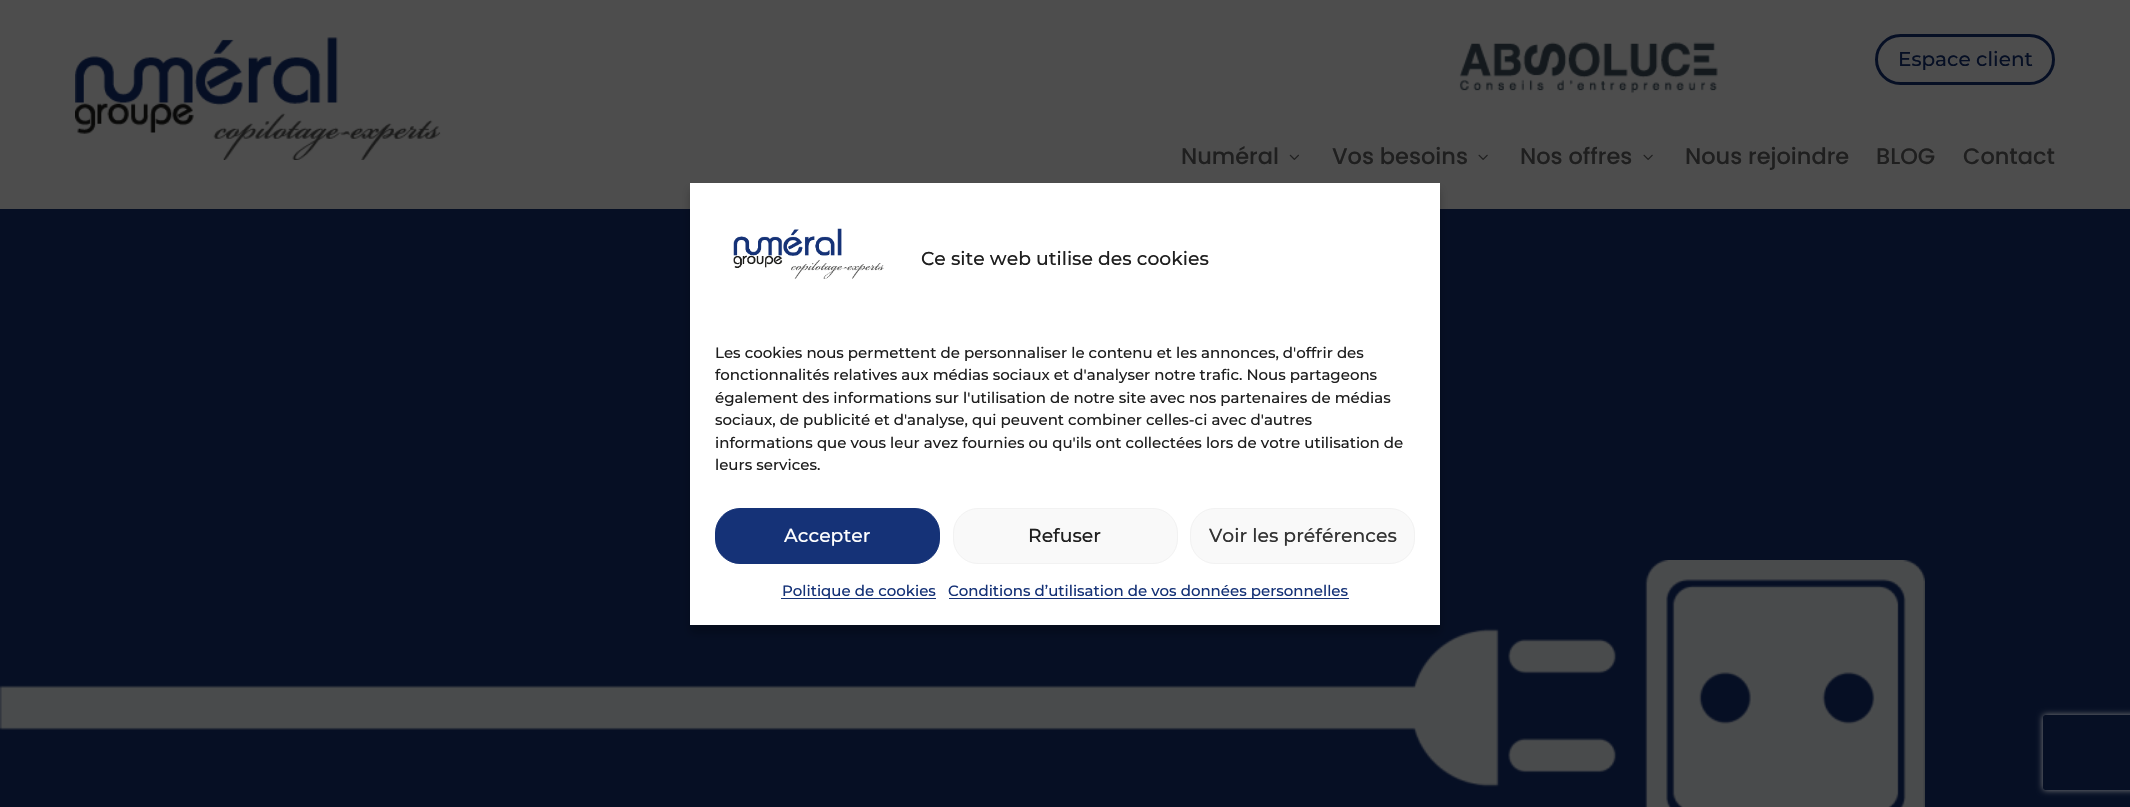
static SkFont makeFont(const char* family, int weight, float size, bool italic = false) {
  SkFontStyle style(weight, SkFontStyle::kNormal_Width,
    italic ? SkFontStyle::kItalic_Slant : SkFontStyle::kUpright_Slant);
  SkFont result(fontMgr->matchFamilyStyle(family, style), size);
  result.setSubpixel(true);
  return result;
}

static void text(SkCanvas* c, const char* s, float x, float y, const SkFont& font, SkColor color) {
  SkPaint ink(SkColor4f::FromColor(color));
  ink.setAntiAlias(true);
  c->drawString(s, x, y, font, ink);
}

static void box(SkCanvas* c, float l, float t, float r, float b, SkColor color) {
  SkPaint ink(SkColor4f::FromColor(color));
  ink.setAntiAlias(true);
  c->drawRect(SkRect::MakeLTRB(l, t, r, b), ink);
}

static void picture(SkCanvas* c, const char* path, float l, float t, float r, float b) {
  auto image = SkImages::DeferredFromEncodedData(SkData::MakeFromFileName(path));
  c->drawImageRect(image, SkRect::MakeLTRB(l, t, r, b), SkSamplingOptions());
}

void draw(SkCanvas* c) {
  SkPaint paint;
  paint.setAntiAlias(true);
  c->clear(0xff060f24);
  box(c, 0, 0, 2130, 209, 0xff4d4d4d);
  picture(c, "img_01.png", 1459, 42, 1718, 93);
  paint.setStyle(SkPaint::kStroke_Style);
  paint.setStrokeWidth(3);
  paint.setColor(0xff060f24);
  c->drawRoundRect(SkRect::MakeLTRB(1876.5f, 35.5f, 2053.5f, 83.5f), 24, 24, paint);
  SkFont face1 = makeFont("Montserrat", 500, 20);
  text(c, "Espace client", 1898, 66, face1, 0xff060f24);
  picture(c, "img_02.png", 75, 37, 441, 160);
  SkFont face2 = makeFont("Poppins", 500, 22.5f);
  text(c, "Numéral", 1181, 164, face2, 0xff1f1f1f);
  picture(c, "img_03.png", 1289, 154, 1299, 160);
  text(c, "Vos besoins", 1332, 164, face2, 0xff1f1f1f);
  picture(c, "img_04.png", 1478, 154, 1488, 160);
  text(c, "Nos offres", 1520, 164, face2, 0xff1f1f1f);
  picture(c, "img_04.png", 1643, 154, 1653, 160);
  text(c, "Nous rejoindre", 1685, 164, face2, 0xff1f1f1f);
  text(c, "BLOG", 1876, 164, face2, 0xff1f1f1f);
  text(c, "Contact", 1963, 164, face2, 0xff1f1f1f);
  picture(c, "img_05.png", 0, 560, 1925, 807);
  paint.setStyle(SkPaint::kFill_Style);
  paint.setColor(0x3b000000);
  paint.setMaskFilter(SkMaskFilter::MakeBlur(kNormal_SkBlurStyle, 4));
  c->drawRect(SkRect::MakeLTRB(690, 190, 1440, 633), paint);
  paint.setMaskFilter(nullptr);
  box(c, 690, 183, 1440, 625, 0xffffffff);
  picture(c, "img_06.png", 733, 228, 884, 279);
  SkFont face3 = makeFont("Montserrat", 500, 18.75f);
  text(c, "Ce site web utilise des cookies", 921, 265, face3, 0xff1f1f1f);
  SkFont face4 = makeFont("Montserrat", 500, 15);
  text(c, "Les cookies nous permettent de personnaliser le contenu et les annonces, d'offrir des", 715, 358, face4, 0xff1f1f1f);
  text(c, "fonctionnalités relatives aux médias sociaux et d'analyser notre trafic. Nous partageons", 715, 380, face4, 0xff1f1f1f);
  text(c, "également des informations sur l'utilisation de notre site avec nos partenaires de médias", 715, 403, face4, 0xff1f1f1f);
  text(c, "sociaux, de publicité et d'analyse, qui peuvent combiner celles-ci avec d'autres", 715, 425, face4, 0xff1f1f1f);
  text(c, "informations que vous leur avez fournies ou qu'ils ont collectées lors de votre utilisation de", 715, 448, face4, 0xff1f1f1f);
  text(c, "leurs services.", 715, 470, face4, 0xff1f1f1f);
  paint.setColor(0xff153277);
  c->drawRoundRect(SkRect::MakeLTRB(715.5f, 508.5f, 939.5f, 563.5f), 24.5f, 24.5f, paint);
  paint.setStyle(SkPaint::kStroke_Style);
  paint.setStrokeWidth(1);
  c->drawRoundRect(SkRect::MakeLTRB(715.5f, 508.5f, 939.5f, 563.5f), 24.5f, 24.5f, paint);
  text(c, "Accepter", 784, 542, face3, 0xffffffff);
  paint.setStyle(SkPaint::kFill_Style);
  paint.setColor(0xfff9f9f9);
  c->drawRoundRect(SkRect::MakeLTRB(953.5f, 508.5f, 1177.5f, 563.5f), 24.5f, 24.5f, paint);
  paint.setStyle(SkPaint::kStroke_Style);
  paint.setColor(0xfff2f2f2);
  c->drawRoundRect(SkRect::MakeLTRB(953.5f, 508.5f, 1177.5f, 563.5f), 24.5f, 24.5f, paint);
  text(c, "Refuser", 1028, 542, face3, 0xff1f1f1f);
  paint.setStyle(SkPaint::kFill_Style);
  paint.setColor(0xfff9f9f9);
  c->drawRoundRect(SkRect::MakeLTRB(1190.5f, 508.5f, 1414.5f, 563.5f), 24.5f, 24.5f, paint);
  paint.setStyle(SkPaint::kStroke_Style);
  paint.setColor(0xfff2f2f2);
  c->drawRoundRect(SkRect::MakeLTRB(1190.5f, 508.5f, 1414.5f, 563.5f), 24.5f, 24.5f, paint);
  text(c, "Voir les préférences", 1209, 542, face3, 0xff333333);
  box(c, 781, 598, 936, 599, 0xff153277);
  text(c, "Politique de cookies", 782, 596, face4, 0xff153277);
  box(c, 949, 598, 1349, 599, 0xff153277);
  text(c, "Conditions d’utilisation de vos données personnelles", 948, 596, face4, 0xff153277);
  c->save();
  c->clipPath(SkPathBuilder(SkPathFillType::kEvenOdd).moveTo(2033, 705).lineTo(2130, 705).lineTo(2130, 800).lineTo(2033, 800).close().moveTo(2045.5f, 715).lineTo(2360.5f, 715).cubicTo(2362, 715, 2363, 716, 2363, 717.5f).lineTo(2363, 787.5f).cubicTo(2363, 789, 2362, 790, 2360.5f, 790).lineTo(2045.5f, 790).cubicTo(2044, 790, 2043, 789, 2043, 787.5f).lineTo(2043, 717.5f).cubicTo(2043, 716, 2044, 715, 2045.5f, 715).close().detach(), true);
  paint.setStyle(SkPaint::kFill_Style);
  paint.setColor(0xff808080);
  paint.setMaskFilter(SkMaskFilter::MakeBlur(kNormal_SkBlurStyle, 3));
  c->drawRoundRect(SkRect::MakeLTRB(2043, 715, 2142, 790), 2.5f, 2.5f, paint);
  paint.setMaskFilter(nullptr);
  c->restore();
}
